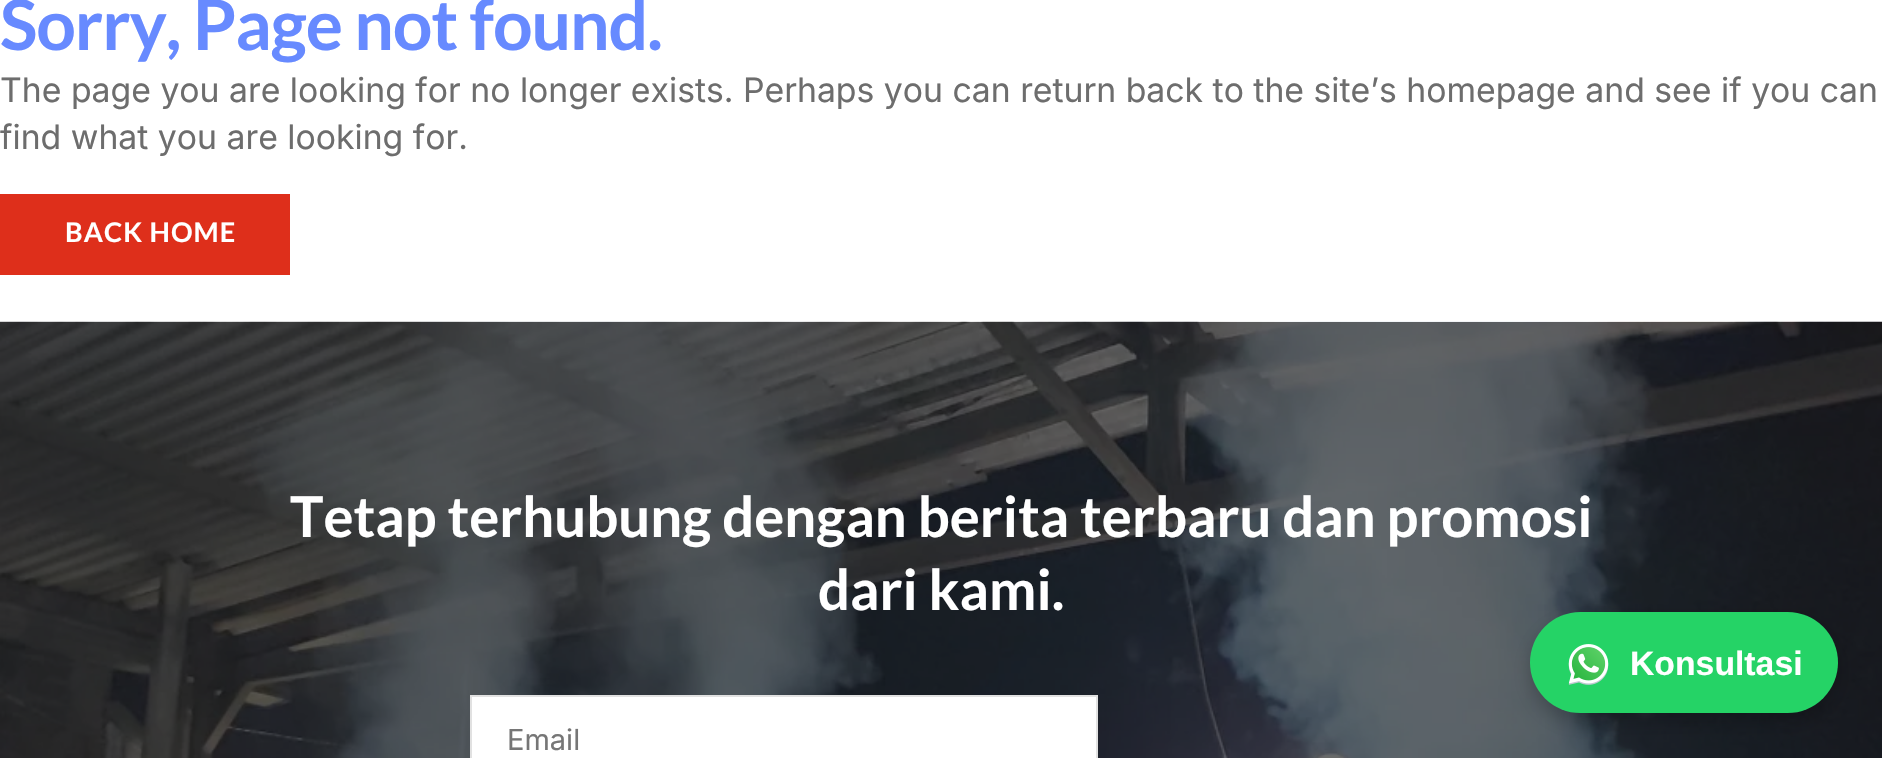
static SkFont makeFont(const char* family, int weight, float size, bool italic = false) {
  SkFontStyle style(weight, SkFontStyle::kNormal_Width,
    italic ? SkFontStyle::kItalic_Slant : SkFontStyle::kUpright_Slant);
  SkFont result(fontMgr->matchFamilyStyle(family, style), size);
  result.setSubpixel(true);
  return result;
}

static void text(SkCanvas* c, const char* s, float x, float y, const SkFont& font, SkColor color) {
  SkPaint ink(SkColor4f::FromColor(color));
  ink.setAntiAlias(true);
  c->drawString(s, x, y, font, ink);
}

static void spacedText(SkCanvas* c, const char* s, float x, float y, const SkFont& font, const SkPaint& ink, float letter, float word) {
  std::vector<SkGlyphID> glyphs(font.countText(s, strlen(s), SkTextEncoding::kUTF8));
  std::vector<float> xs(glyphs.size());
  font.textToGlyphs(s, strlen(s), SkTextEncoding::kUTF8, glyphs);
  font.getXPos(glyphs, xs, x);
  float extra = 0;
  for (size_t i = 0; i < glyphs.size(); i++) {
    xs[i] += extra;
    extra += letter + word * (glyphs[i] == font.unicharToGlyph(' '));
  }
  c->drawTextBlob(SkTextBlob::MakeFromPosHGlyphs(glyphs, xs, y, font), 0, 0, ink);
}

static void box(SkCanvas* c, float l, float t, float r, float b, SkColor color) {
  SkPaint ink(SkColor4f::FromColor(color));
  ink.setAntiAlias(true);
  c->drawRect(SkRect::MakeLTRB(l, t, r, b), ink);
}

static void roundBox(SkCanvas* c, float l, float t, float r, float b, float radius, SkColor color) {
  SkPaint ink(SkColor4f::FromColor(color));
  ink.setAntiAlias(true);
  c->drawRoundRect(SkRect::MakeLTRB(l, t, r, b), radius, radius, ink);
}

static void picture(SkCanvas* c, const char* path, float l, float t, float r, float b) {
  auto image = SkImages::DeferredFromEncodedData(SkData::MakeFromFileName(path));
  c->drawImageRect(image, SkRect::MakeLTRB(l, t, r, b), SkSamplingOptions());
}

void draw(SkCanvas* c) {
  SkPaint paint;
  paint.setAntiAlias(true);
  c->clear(0xffffffff);
  SkFont face1 = makeFont("Lato", 700, 69.75f);
  paint.setColor(0xff678aff);
  spacedText(c, "Sorry, Page not found.", 0, 50, face1, paint, -1.1f, 0);
  SkFont face2 = makeFont("Inter", 400, 33.75f);
  text(c, "The page you are looking for no longer exists. Perhaps you can return back to the site’s homepage and see if you can", 0, 102, face2, 0xff6d6d6d);
  text(c, "find what you are looking for.", 0, 149, face2, 0xff6d6d6d);
  box(c, 0, 194, 290, 275, 0xffde2f1b);
  SkFont face3 = makeFont("Lato", 700, 27);
  paint.setColor(0xffffffff);
  spacedText(c, "BACK HOME", 65, 242, face3, paint, 1.1f, 0);
  picture(c, "img_01.png", 0, 321, 1882, 758);
  SkFont face4 = makeFont("Lato", 700, 56.25f);
  text(c, "Tetap terhubung dengan berita terbaru dan promosi", 290, 537, face4, 0xffffffff);
  text(c, "dari kami.", 818, 610, face4, 0xffffffff);
  c->drawRect(SkRect::MakeLTRB(471, 696, 1097, 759), paint);
  paint.setStyle(SkPaint::kStroke_Style);
  paint.setStrokeWidth(2);
  paint.setColor(0xffe1e1e1);
  c->drawRect(SkRect::MakeLTRB(471, 696, 1097, 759), paint);
  SkFont face5 = makeFont("Inter", 400, 29);
  text(c, "Email", 507, 750, face5, 0xff767676);
  paint.setStyle(SkPaint::kFill_Style);
  paint.setColor(0x33000000);
  paint.setMaskFilter(SkMaskFilter::MakeBlur(kNormal_SkBlurStyle, 9));
  c->drawRoundRect(SkRect::MakeLTRB(1530, 621, 1838, 722), 50.5f, 50.5f, paint);
  paint.setMaskFilter(nullptr);
  roundBox(c, 1530, 612, 1838, 713, 50.5f, 0xff25d366);
  picture(c, "img_02.png", 1568, 644, 1609, 685);
  SkFont face6 = makeFont("Liberation Sans", 700, 33.75f);
  text(c, "Konsultasi", 1630, 675, face6, 0xffffffff);
}
